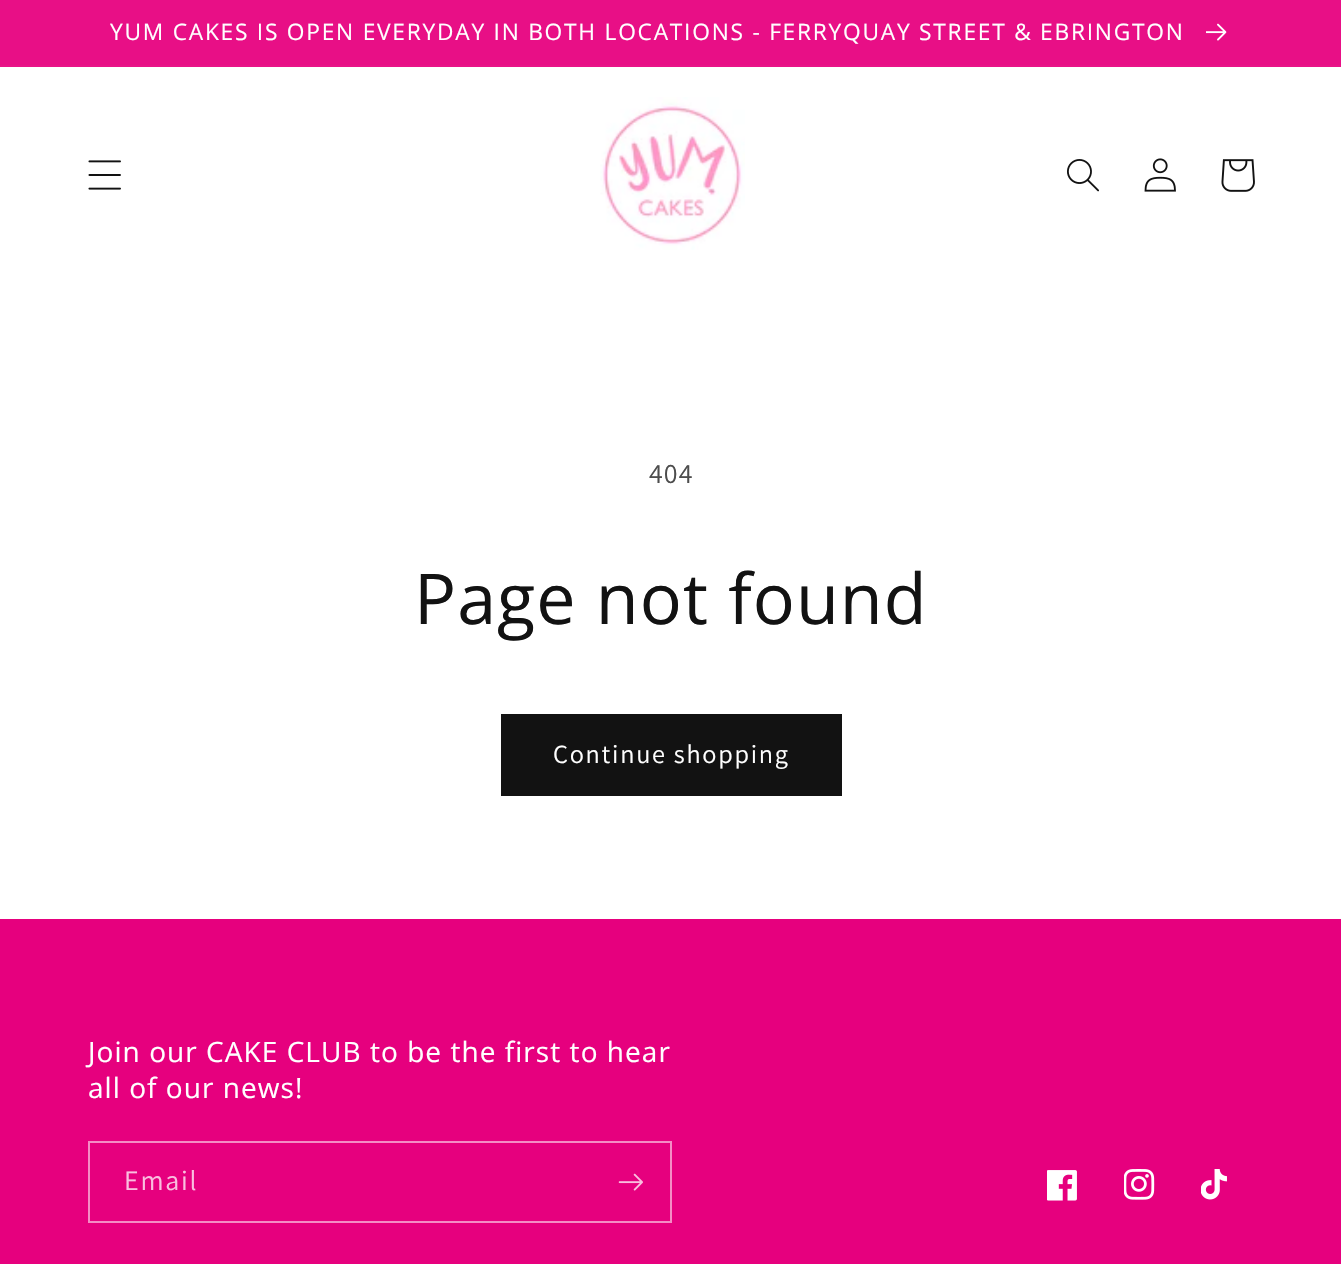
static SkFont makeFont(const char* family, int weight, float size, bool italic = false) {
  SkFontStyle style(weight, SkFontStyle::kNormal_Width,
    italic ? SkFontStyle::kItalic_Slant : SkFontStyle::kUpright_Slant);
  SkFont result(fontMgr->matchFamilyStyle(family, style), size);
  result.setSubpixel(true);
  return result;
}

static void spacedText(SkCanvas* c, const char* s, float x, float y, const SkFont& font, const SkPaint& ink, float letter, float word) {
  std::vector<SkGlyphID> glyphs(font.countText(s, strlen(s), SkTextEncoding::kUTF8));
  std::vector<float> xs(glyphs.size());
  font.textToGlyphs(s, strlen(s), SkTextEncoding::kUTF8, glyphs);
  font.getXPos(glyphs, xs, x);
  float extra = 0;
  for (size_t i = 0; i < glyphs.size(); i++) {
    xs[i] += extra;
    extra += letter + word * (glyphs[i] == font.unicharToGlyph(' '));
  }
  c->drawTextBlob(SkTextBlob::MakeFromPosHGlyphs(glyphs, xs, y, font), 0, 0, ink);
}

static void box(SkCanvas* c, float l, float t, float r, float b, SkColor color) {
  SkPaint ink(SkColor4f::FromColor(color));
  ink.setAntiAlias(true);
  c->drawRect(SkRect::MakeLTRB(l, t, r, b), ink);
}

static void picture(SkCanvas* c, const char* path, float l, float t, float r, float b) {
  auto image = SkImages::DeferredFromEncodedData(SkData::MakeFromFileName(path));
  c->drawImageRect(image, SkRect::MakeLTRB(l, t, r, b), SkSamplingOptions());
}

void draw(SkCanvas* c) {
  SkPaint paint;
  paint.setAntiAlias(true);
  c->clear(0xffffffff);
  box(c, 0, 65, 1341, 67, 0xffe81488);
  box(c, 0, 0, 1341, 65, 0xffe80f86);
  SkFont face1 = makeFont("Open Sans", 400, 22.75f);
  paint.setColor(0xffffffff);
  spacedText(c, "YUM CAKES IS OPEN EVERYDAY IN BOTH LOCATIONS - FERRYQUAY STREET & EBRINGTON", 110, 40, face1, paint, 1.75f, 0);
  picture(c, "img_01.png", 1206, 23, 1227, 41);
  picture(c, "img_02.png", 88, 160, 121, 190);
  picture(c, "img_03.png", 600, 97, 745, 250);
  picture(c, "img_04.png", 1067, 159, 1099, 192);
  picture(c, "img_05.png", 1144, 158, 1176, 192);
  picture(c, "img_06.png", 1221, 159, 1255, 192);
  SkFont face2 = makeFont("Assistant", 400, 28);
  paint.setColor(0xff4d4d4d);
  spacedText(c, "404", 649, 483, face2, paint, 1.05f, 0);
  SkFont face3 = makeFont("Open Sans", 400, 70);
  paint.setColor(0xff121212);
  spacedText(c, "Page not found", 414, 624, face3, paint, 1.05f, 0);
  box(c, 501, 714, 842, 796, 0xff121212);
  SkFont face4 = makeFont("Assistant", 400, 26.25f);
  paint.setColor(0xffffffff);
  spacedText(c, "Continue shopping", 553, 763, face4, paint, 1.75f, 0);
  box(c, 0, 919, 1341, 1264, 0xffe6007e);
  SkFont face5 = makeFont("Open Sans", 400, 28);
  spacedText(c, "Join our CAKE CLUB to be the first to hear", 88, 1062, face5, paint, 1.05f, 0);
  spacedText(c, "all of our news!", 88, 1098, face5, paint, 1.05f, 0);
  paint.setStyle(SkPaint::kStroke_Style);
  paint.setStrokeWidth(2);
  paint.setColor(0xfff48cc5);
  c->drawRect(SkRect::MakeLTRB(89, 1142, 671, 1222), paint);
  paint.setStyle(SkPaint::kFill_Style);
  paint.setColor(0xfff9bfdf);
  spacedText(c, "Email", 124, 1190, face2, paint, 1.75f, 0);
  picture(c, "img_07.png", 618, 1173, 643, 1191);
  picture(c, "img_08.png", 1047, 1170, 1077, 1201);
  picture(c, "img_09.png", 1124, 1169, 1155, 1200);
  picture(c, "img_10.png", 1201, 1169, 1227, 1200);
}
